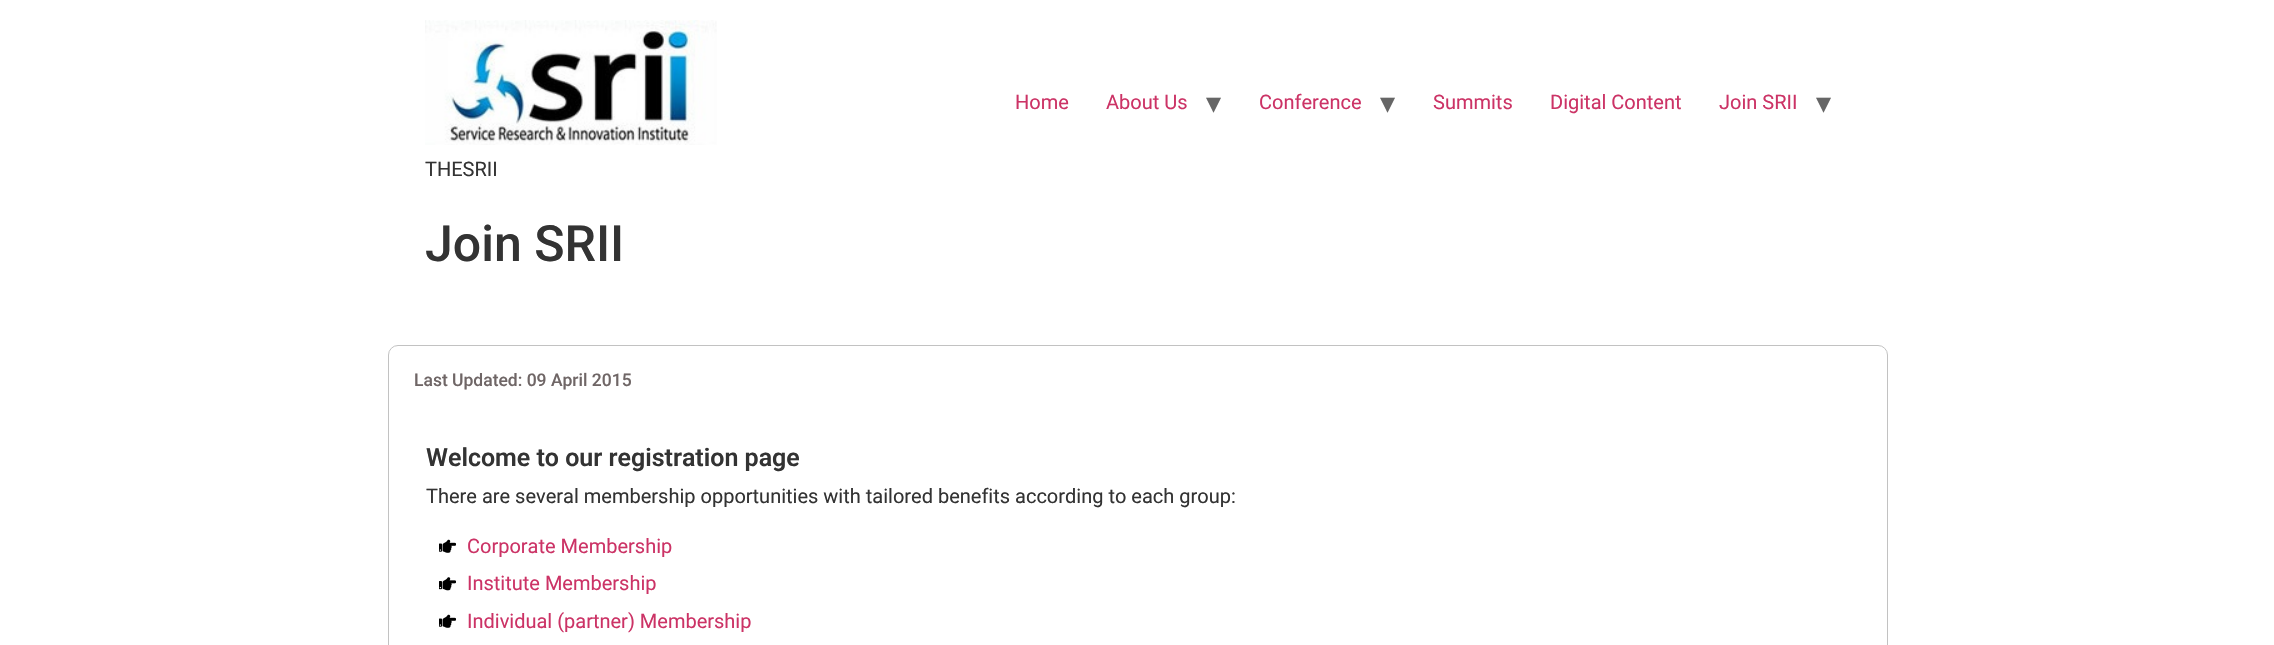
static SkFont makeFont(const char* family, int weight, float size, bool italic = false) {
  SkFontStyle style(weight, SkFontStyle::kNormal_Width,
    italic ? SkFontStyle::kItalic_Slant : SkFontStyle::kUpright_Slant);
  SkFont result(fontMgr->matchFamilyStyle(family, style), size);
  result.setSubpixel(true);
  return result;
}

static void text(SkCanvas* c, const char* s, float x, float y, const SkFont& font, SkColor color) {
  SkPaint ink(SkColor4f::FromColor(color));
  ink.setAntiAlias(true);
  c->drawString(s, x, y, font, ink);
}

static void picture(SkCanvas* c, const char* path, float l, float t, float r, float b) {
  auto image = SkImages::DeferredFromEncodedData(SkData::MakeFromFileName(path));
  c->drawImageRect(image, SkRect::MakeLTRB(l, t, r, b), SkSamplingOptions());
}

void draw(SkCanvas* c) {
  SkPaint paint;
  paint.setAntiAlias(true);
  c->clear(0xffffffff);
  SkFont face1 = makeFont("Roboto", 400, 20);
  text(c, "Home", 1015, 109, face1, 0xffcc3366);
  text(c, "About Us", 1106, 109, face1, 0xffcc3366);
  SkFont face2 = makeFont("DejaVu Sans", 400, 30);
  text(c, "▾", 1206, 113, face2, 0xff666666);
  text(c, "Conference", 1259, 109, face1, 0xffcc3366);
  text(c, "▾", 1380, 113, face2, 0xff666666);
  text(c, "Summits", 1433, 109, face1, 0xffcc3366);
  text(c, "Digital Content", 1550, 109, face1, 0xffcc3366);
  text(c, "Join SRII", 1719, 109, face1, 0xffcc3366);
  text(c, "▾", 1816, 113, face2, 0xff666666);
  picture(c, "img_01.png", 425, 20, 717, 145);
  text(c, "THESRII", 425, 176, face1, 0xff333333);
  SkFont face3 = makeFont("Roboto", 500, 50);
  text(c, "Join SRII", 425, 261, face3, 0xff333333);
  paint.setStyle(SkPaint::kStroke_Style);
  paint.setStrokeWidth(1);
  paint.setColor(0xffc2c2c2);
  c->drawRoundRect(SkRect::MakeLTRB(388.5f, 345.5f, 1887.5f, 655.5f), 9.5f, 9.5f, paint);
  SkFont face4 = makeFont("Roboto", 500, 17.5f);
  text(c, "Last Updated: 09 April 2015", 414, 386, face4, 0xff6f6666);
  SkFont face5 = makeFont("Roboto", 600, 25);
  text(c, "Welcome to our registration page", 426, 466, face5, 0xff333333);
  text(c, "There are several membership opportunities with tailored benefits according to each group:", 426, 503, face1, 0xff333333);
  picture(c, "img_02.png", 439, 539, 456, 553);
  text(c, "Corporate Membership", 467, 553, face1, 0xffcc3366);
  picture(c, "img_03.png", 439, 577, 456, 591);
  text(c, "Institute Membership", 467, 590, face1, 0xffcc3366);
  picture(c, "img_02.png", 439, 614, 456, 628);
  text(c, "Individual (partner) Membership", 467, 628, face1, 0xffcc3366);
}
